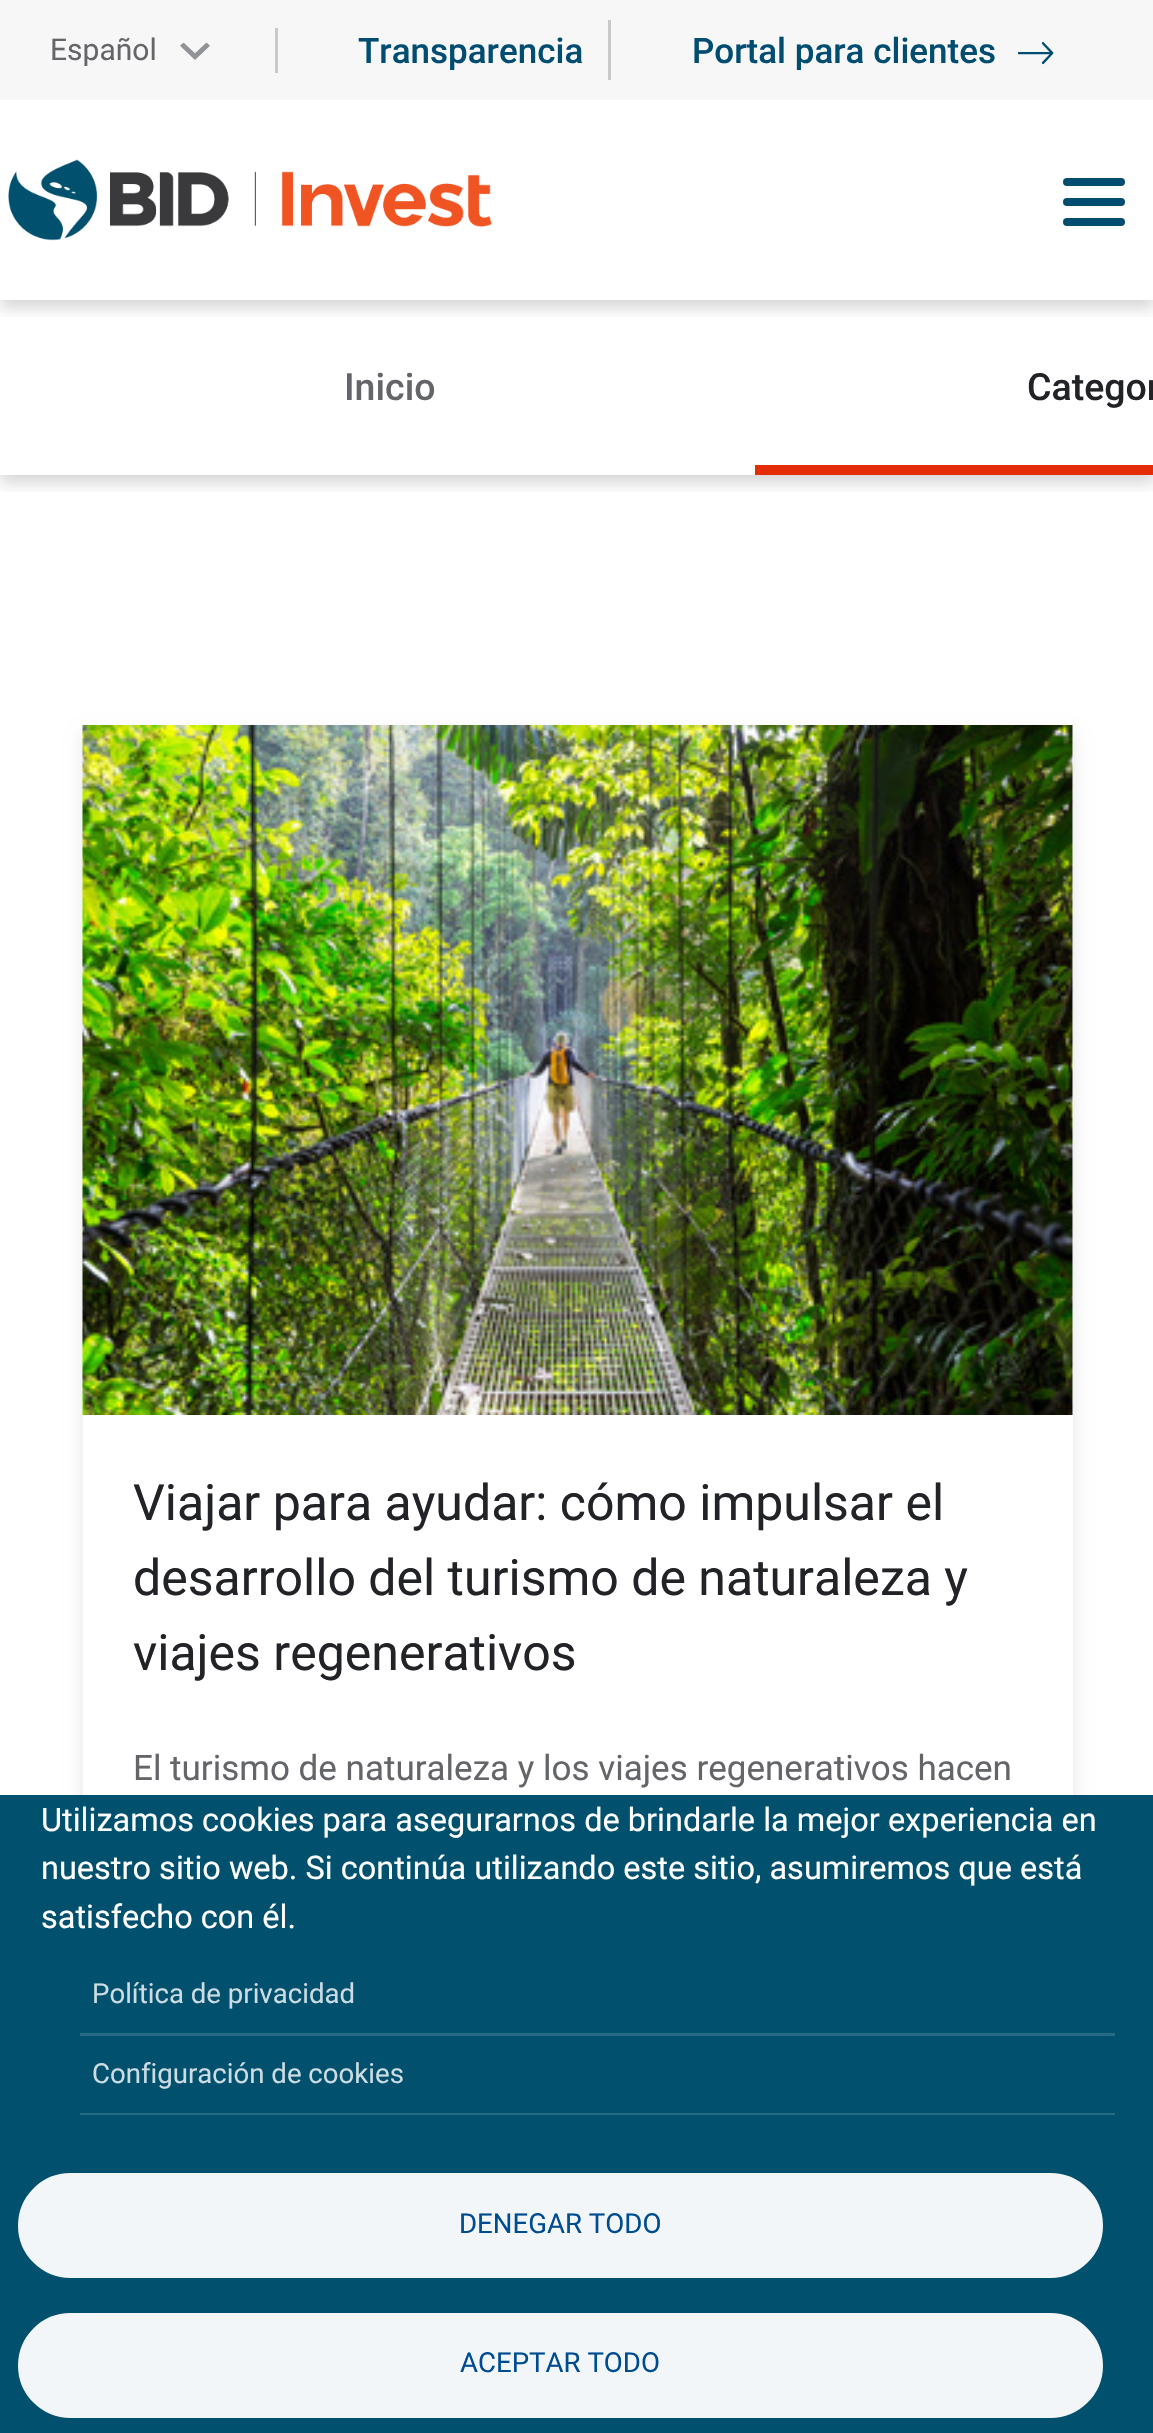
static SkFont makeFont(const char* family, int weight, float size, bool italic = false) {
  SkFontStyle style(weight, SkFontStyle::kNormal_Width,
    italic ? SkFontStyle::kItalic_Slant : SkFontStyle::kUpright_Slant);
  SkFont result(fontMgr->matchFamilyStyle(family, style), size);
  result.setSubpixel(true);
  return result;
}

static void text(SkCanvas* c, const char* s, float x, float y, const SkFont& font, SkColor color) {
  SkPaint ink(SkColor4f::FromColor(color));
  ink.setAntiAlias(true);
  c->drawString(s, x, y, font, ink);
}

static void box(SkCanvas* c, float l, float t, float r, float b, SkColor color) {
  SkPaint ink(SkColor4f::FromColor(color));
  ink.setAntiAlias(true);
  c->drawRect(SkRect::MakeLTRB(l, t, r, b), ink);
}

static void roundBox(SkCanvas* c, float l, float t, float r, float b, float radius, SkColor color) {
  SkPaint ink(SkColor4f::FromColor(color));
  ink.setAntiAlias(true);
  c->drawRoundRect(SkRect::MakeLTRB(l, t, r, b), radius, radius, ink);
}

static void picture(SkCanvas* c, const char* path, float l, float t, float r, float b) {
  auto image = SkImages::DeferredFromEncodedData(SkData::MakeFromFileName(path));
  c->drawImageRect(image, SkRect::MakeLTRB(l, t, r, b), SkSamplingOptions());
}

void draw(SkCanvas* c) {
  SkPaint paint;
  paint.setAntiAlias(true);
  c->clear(0xffffffff);
  c->save();
  c->clipRect(SkRect::MakeLTRB(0, 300, 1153, 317));
  paint.setColor(0x29000000);
  paint.setMaskFilter(SkMaskFilter::MakeBlur(kNormal_SkBlurStyle, 7.5f));
  c->drawRect(SkRect::MakeLTRB(0, 8, 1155, 308), paint);
  paint.setMaskFilter(nullptr);
  c->restore();
  box(c, 0, 0, 1153, 100, 0xfff7f7f7);
  box(c, 275, 28, 278, 73, 0xffc9c9c9);
  SkFont face1 = makeFont("Roboto", 400, 30);
  text(c, "Español", 50, 60, face1, 0xff636569);
  picture(c, "img_01.png", 180, 43, 210, 60);
  box(c, 608, 20, 611, 80, 0xffc9c9c9);
  SkFont face2 = makeFont("Roboto", 500, 35);
  text(c, "Transparencia", 358, 63, face2, 0xff004d71);
  text(c, "Portal para clientes", 692, 63, face2, 0xff004d71);
  picture(c, "img_02.png", 1017, 42, 1054, 65);
  picture(c, "img_03.png", 8, 159, 492, 241);
  roundBox(c, 1063, 178, 1125, 186, 4, 0xff004d71);
  roundBox(c, 1063, 198, 1125, 206, 4, 0xff004d71);
  roundBox(c, 1063, 218, 1125, 226, 4, 0xff004d71);
  c->save();
  c->clipRect(SkRect::MakeLTRB(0, 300, 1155, 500));
  c->clipRect(SkRect::MakeLTRB(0, 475, 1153, 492));
  paint.setMaskFilter(SkMaskFilter::MakeBlur(kNormal_SkBlurStyle, 7.5f));
  c->drawRect(SkRect::MakeLTRB(0, 308, 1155, 483), paint);
  paint.setMaskFilter(nullptr);
  c->restore();
  SkFont face3 = makeFont("Roboto", 500, 37.5f);
  text(c, "Inicio", 344, 400, face3, 0xff636569);
  box(c, 755, 465, 1153, 475, 0xffe42c07);
  text(c, "Categor", 1027, 400, face3, 0xff222327);
  paint.setColor(0x1a000000);
  paint.setMaskFilter(SkMaskFilter::MakeBlur(kNormal_SkBlurStyle, 7.5f));
  c->drawRect(SkRect::MakeLTRB(83, 733, 1073, 2128), paint);
  paint.setMaskFilter(nullptr);
  box(c, 83, 725, 1073, 1795, 0xffffffff);
  picture(c, "img_04.png", 82, 725, 1073, 1415);
  SkFont face4 = makeFont("Roboto", 400, 50);
  text(c, "Viajar para ayudar: cómo impulsar el", 133, 1520, face4, 0xff222327);
  text(c, "desarrollo del turismo de naturaleza y", 133, 1595, face4, 0xff222327);
  text(c, "viajes regenerativos", 133, 1670, face4, 0xff222327);
  SkFont face5 = makeFont("Roboto", 400, 35);
  text(c, "El turismo de naturaleza y los viajes regenerativos hacen", 133, 1780, face5, 0xff636569);
  box(c, 0, 1795, 1153, 2433, 0xff00506e);
  SkFont face6 = makeFont("Roboto", 400, 32.5f);
  text(c, "Utilizamos cookies para asegurarnos de brindarle la mejor experiencia en", 41, 1831, face6, 0xffffffff);
  text(c, "nuestro sitio web. Si continúa utilizando este sitio, asumiremos que está", 41, 1879, face6, 0xffffffff);
  text(c, "satisfecho con él.", 41, 1928, face6, 0xffffffff);
  box(c, 80, 2033, 1115, 2036, 0xff266a84);
  SkFont face7 = makeFont("Roboto", 400, 27.6f);
  text(c, "Política de privacidad", 92, 2003, face7, 0xffccdce2);
  box(c, 80, 2113, 1115, 2115, 0xff266a84);
  text(c, "Configuración de cookies", 92, 2083, face7, 0xffccdce2);
  paint.setColor(0xfff2f6f8);
  c->drawRoundRect(SkRect::MakeLTRB(20.5f, 2175.5f, 1100.5f, 2275.5f), 50, 50, paint);
  paint.setStyle(SkPaint::kStroke_Style);
  paint.setStrokeWidth(5);
  c->drawRoundRect(SkRect::MakeLTRB(20.5f, 2175.5f, 1100.5f, 2275.5f), 50, 50, paint);
  text(c, "DENEGAR TODO", 459, 2233, face7, 0xff004c91);
  paint.setStyle(SkPaint::kFill_Style);
  c->drawRoundRect(SkRect::MakeLTRB(20.5f, 2315.5f, 1100.5f, 2415.5f), 50, 50, paint);
  paint.setStyle(SkPaint::kStroke_Style);
  c->drawRoundRect(SkRect::MakeLTRB(20.5f, 2315.5f, 1100.5f, 2415.5f), 50, 50, paint);
  text(c, "ACEPTAR TODO", 460, 2372, face7, 0xff004c91);
}
